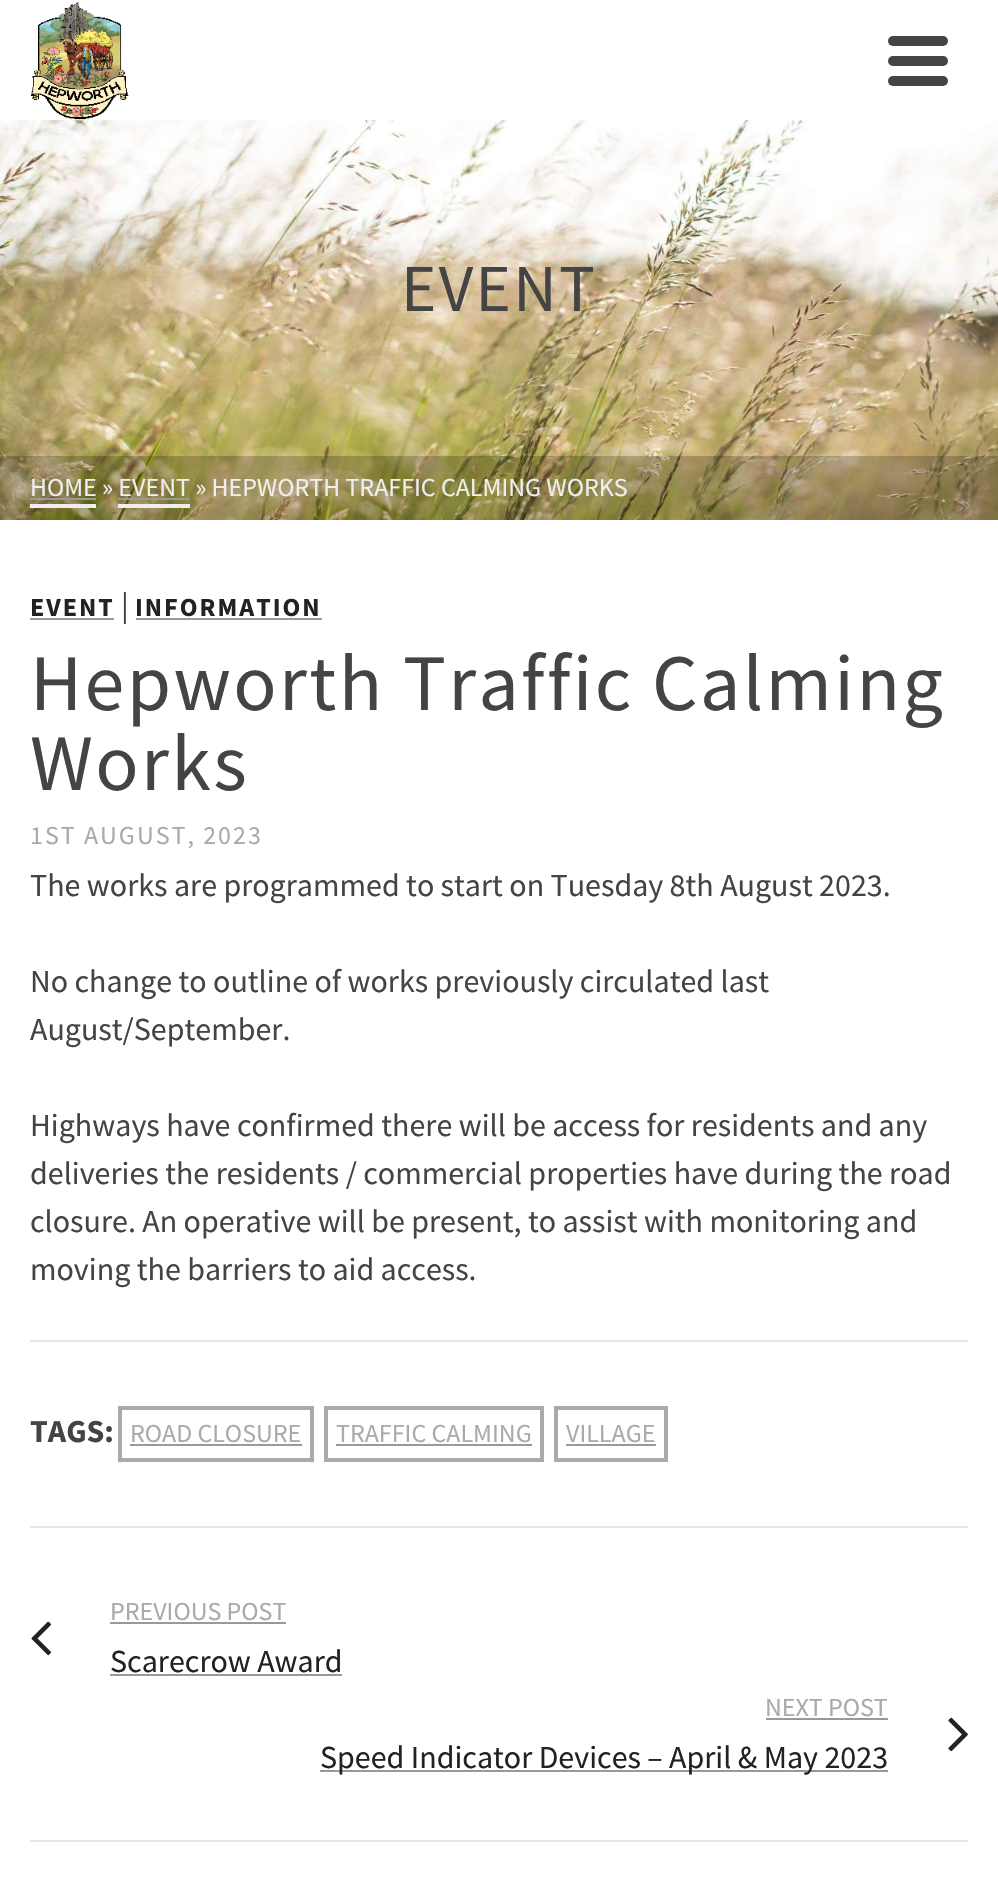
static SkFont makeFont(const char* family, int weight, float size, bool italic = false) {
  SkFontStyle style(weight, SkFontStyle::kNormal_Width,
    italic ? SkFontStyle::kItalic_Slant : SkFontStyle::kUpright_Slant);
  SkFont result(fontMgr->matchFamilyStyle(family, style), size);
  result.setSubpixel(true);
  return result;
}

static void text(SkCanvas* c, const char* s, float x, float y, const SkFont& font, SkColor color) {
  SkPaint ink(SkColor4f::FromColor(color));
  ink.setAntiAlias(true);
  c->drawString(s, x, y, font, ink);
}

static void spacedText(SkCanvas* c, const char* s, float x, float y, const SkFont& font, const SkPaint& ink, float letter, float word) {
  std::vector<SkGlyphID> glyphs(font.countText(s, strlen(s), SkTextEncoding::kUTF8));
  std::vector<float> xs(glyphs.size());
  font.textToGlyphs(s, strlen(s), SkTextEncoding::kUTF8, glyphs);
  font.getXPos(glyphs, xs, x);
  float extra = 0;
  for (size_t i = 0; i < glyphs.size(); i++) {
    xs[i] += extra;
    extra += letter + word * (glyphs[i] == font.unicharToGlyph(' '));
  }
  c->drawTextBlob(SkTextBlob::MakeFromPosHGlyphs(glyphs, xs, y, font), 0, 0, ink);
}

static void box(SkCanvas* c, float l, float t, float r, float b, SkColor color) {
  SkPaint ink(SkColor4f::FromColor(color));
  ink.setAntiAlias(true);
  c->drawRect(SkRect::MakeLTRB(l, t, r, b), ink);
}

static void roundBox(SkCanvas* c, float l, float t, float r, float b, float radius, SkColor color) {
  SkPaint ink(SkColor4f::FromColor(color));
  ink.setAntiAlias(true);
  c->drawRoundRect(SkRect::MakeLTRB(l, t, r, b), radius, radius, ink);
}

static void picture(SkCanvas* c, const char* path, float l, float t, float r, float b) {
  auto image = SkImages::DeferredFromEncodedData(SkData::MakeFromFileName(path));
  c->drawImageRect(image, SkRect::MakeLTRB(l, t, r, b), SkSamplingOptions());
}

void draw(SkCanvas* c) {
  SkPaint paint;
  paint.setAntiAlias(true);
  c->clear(0xffffffff);
  picture(c, "img_01.png", 30, 2, 129, 120);
  roundBox(c, 888, 36, 948, 46, 5, 0xff444444);
  roundBox(c, 888, 56, 948, 66, 5, 0xff444444);
  roundBox(c, 888, 76, 948, 86, 5, 0xff444444);
  picture(c, "img_02.png", 0, 120, 998, 520);
  SkFont face1 = makeFont("Source Sans Pro", 400, 67);
  paint.setColor(0xff444444);
  spacedText(c, "EVENT", 401, 311, face1, paint, 2.4f, 0);
  box(c, 0, 456, 998, 520, 0x33000000);
  SkFont face2 = makeFont("Source Sans Pro", 400, 26);
  text(c, "HOME » EVENT » HEPWORTH TRAFFIC CALMING WORKS", 30, 496, face2, 0xffeeeeee);
  box(c, 30, 504, 96, 508, 0xffeeeeee);
  box(c, 30, 498, 96, 500, 0xff999999);
  box(c, 118, 498, 190, 500, 0xff999999);
  box(c, 118, 504, 190, 508, 0xffeeeeee);
  SkFont face3 = makeFont("Source Sans Pro", 700, 26);
  paint.setColor(0xff222222);
  spacedText(c, "EVENT", 30, 616, face3, paint, 2, 0);
  box(c, 30, 618, 114, 620, 0xff999999);
  SkFont face4 = makeFont("Source Sans Pro", 400, 32);
  text(c, "|", 121, 616, face4, 0xff444444);
  spacedText(c, "INFORMATION", 135, 616, face3, paint, 2, 0);
  box(c, 136, 618, 322, 620, 0xff999999);
  SkFont face5 = makeFont("Source Sans Pro", 400, 80);
  paint.setColor(0xff444444);
  spacedText(c, "Hepworth Traffic Calming", 30, 710, face5, paint, 2.4f, 0);
  spacedText(c, "Works", 30, 790, face5, paint, 2.4f, 0);
  paint.setColor(0xffaaaaaa);
  spacedText(c, "1ST AUGUST, 2023", 30, 844, face2, paint, 2, 0);
  text(c, "The works are programmed to start on Tuesday 8th August 2023.", 30, 896, face4, 0xff444444);
  text(c, "No change to outline of works previously circulated last", 30, 992, face4, 0xff444444);
  text(c, "August/September.", 30, 1040, face4, 0xff444444);
  text(c, "Highways have confirmed there will be access for residents and any", 30, 1136, face4, 0xff444444);
  text(c, "deliveries the residents / commercial properties have during the road", 30, 1184, face4, 0xff444444);
  text(c, "closure. An operative will be present, to assist with monitoring and", 30, 1232, face4, 0xff444444);
  text(c, "moving the barriers to aid access.", 30, 1280, face4, 0xff444444);
  box(c, 30, 1340, 968, 1342, 0xffe6e6e6);
  box(c, 30, 1526, 968, 1528, 0xffe6e6e6);
  SkFont face6 = makeFont("Source Sans Pro", 700, 32);
  text(c, "TAGS:", 30, 1442, face6, 0xff444444);
  paint.setStyle(SkPaint::kStroke_Style);
  paint.setStrokeWidth(4);
  c->drawRect(SkRect::MakeLTRB(120, 1408, 312, 1460), paint);
  text(c, "ROAD CLOSURE", 130, 1442, face2, 0xffaaaaaa);
  box(c, 130, 1444, 302, 1446, 0xff999999);
  c->drawRect(SkRect::MakeLTRB(326, 1408, 542, 1460), paint);
  text(c, "TRAFFIC CALMING", 336, 1442, face2, 0xffaaaaaa);
  box(c, 336, 1444, 532, 1446, 0xff999999);
  c->drawRect(SkRect::MakeLTRB(556, 1408, 666, 1460), paint);
  text(c, "VILLAGE", 566, 1442, face2, 0xffaaaaaa);
  box(c, 566, 1444, 656, 1446, 0xff999999);
  box(c, 30, 1840, 968, 1842, 0xffe6e6e6);
  text(c, "PREVIOUS POST", 110, 1620, face2, 0xffaaaaaa);
  box(c, 110, 1622, 286, 1624, 0xff999999);
  picture(c, "img_03.png", 31, 1621, 51, 1656);
  text(c, "Scarecrow Award", 110, 1672, face4, 0xff222222);
  box(c, 110, 1674, 342, 1676, 0xff999999);
  text(c, "NEXT POST", 765, 1716, face2, 0xffaaaaaa);
  box(c, 766, 1718, 888, 1720, 0xff999999);
  picture(c, "img_04.png", 948, 1717, 968, 1752);
  box(c, 320, 1770, 888, 1772, 0xff999999);
  text(c, "Speed Indicator Devices – April & May 2023", 320, 1768, face4, 0xff222222);
}
